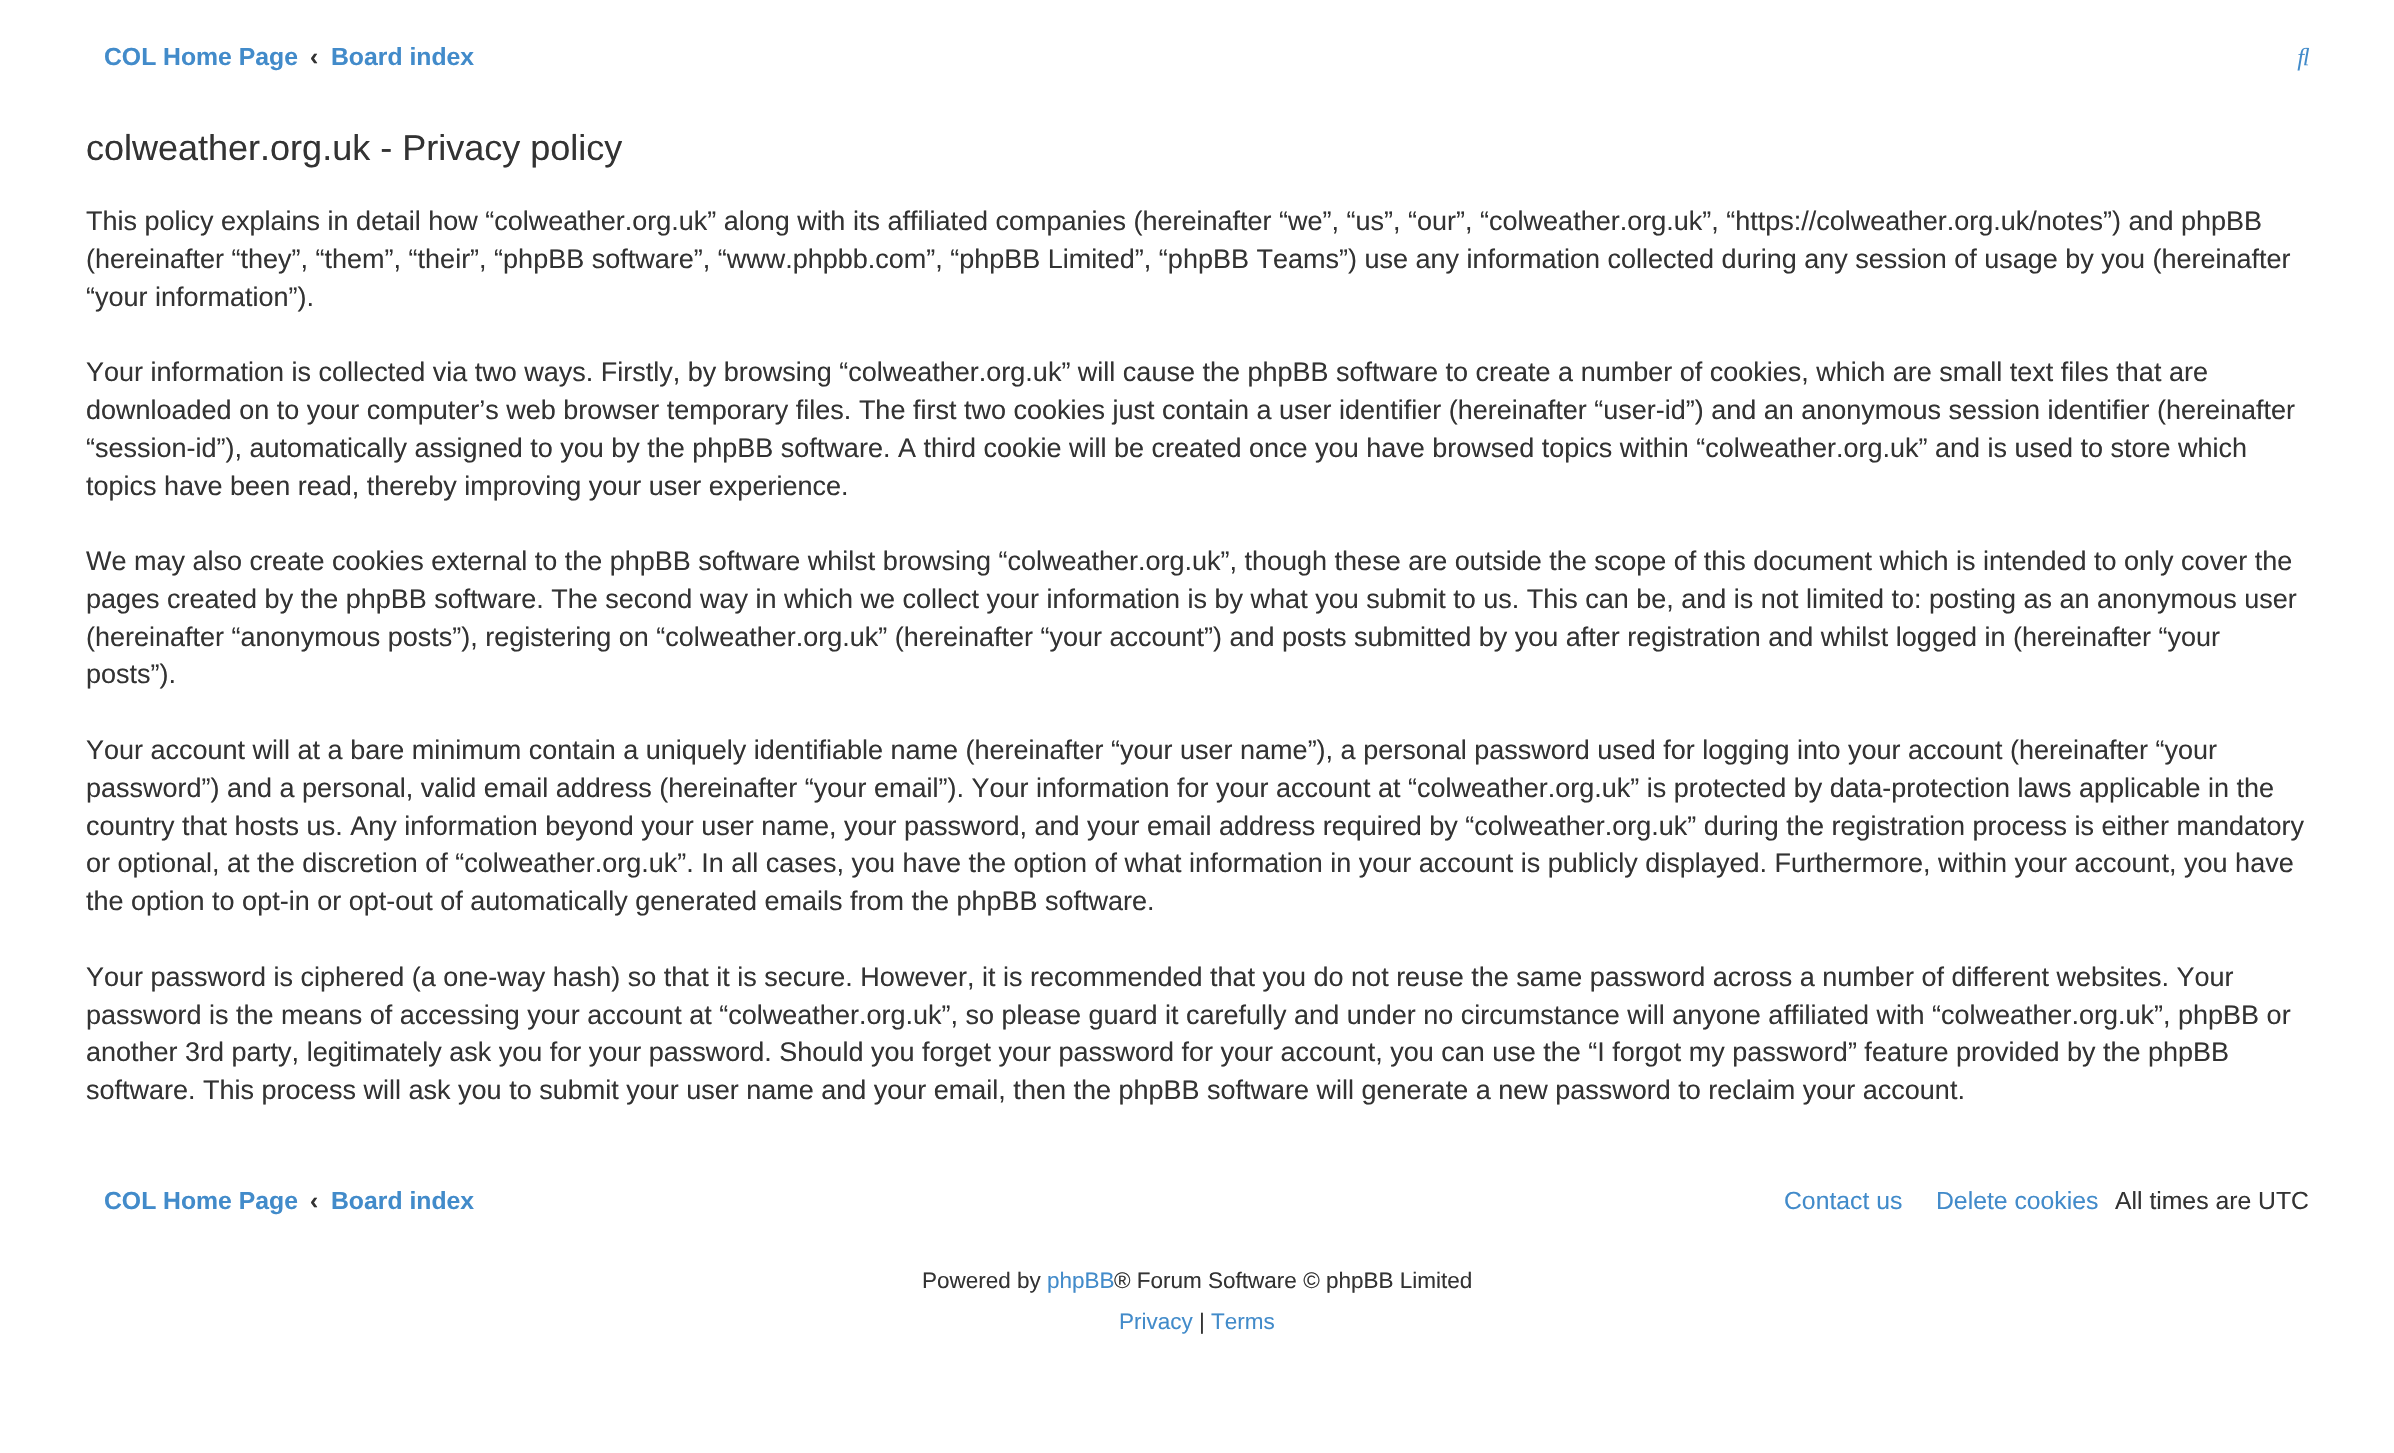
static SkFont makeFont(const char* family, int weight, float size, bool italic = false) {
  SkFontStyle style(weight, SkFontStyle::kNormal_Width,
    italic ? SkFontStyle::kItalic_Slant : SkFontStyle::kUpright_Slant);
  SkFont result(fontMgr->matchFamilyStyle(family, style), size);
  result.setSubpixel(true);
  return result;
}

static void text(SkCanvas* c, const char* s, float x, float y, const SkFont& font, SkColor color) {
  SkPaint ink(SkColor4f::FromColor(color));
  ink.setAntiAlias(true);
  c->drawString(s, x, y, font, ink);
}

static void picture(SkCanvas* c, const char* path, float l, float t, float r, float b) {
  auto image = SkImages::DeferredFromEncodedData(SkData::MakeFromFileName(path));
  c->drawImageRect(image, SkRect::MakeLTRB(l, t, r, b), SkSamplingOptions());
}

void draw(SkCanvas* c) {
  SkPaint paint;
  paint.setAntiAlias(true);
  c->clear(0xffffffff);
  SkFont face1 = makeFont("Liberation Sans", 700, 24.75f);
  text(c, "COL Home Page", 104, 65, face1, 0xff428bca);
  text(c, "‹", 310, 65, face1, 0xff333333);
  text(c, "Board index", 331, 65, face1, 0xff428bca);
  picture(c, "img_01.png", 2297, 47, 2310, 71);
  SkFont face2 = makeFont("Liberation Sans", 400, 36);
  text(c, "colweather.org.uk - Privacy policy", 86, 160, face2, 0xff333333);
  SkFont face3 = makeFont("Liberation Sans", 400, 27);
  text(c, "This policy explains in detail how “colweather.org.uk” along with its affiliated companies (hereinafter “we”, “us”, “our”, “colweather.org.uk”, “https://colweather.org.uk/notes”) and phpBB", 86, 230, face3, 0xff333333);
  text(c, "(hereinafter “they”, “them”, “their”, “phpBB software”, “www.phpbb.com”, “phpBB Limited”, “phpBB Teams”) use any information collected during any session of usage by you (hereinafter", 86, 268, face3, 0xff333333);
  text(c, "“your information”).", 86, 306, face3, 0xff333333);
  text(c, "Your information is collected via two ways. Firstly, by browsing “colweather.org.uk” will cause the phpBB software to create a number of cookies, which are small text files that are", 86, 381, face3, 0xff333333);
  text(c, "downloaded on to your computer’s web browser temporary files. The first two cookies just contain a user identifier (hereinafter “user-id”) and an anonymous session identifier (hereinafter", 86, 419, face3, 0xff333333);
  text(c, "“session-id”), automatically assigned to you by the phpBB software. A third cookie will be created once you have browsed topics within “colweather.org.uk” and is used to store which", 86, 457, face3, 0xff333333);
  text(c, "topics have been read, thereby improving your user experience.", 86, 495, face3, 0xff333333);
  text(c, "We may also create cookies external to the phpBB software whilst browsing “colweather.org.uk”, though these are outside the scope of this document which is intended to only cover the", 86, 570, face3, 0xff333333);
  text(c, "pages created by the phpBB software. The second way in which we collect your information is by what you submit to us. This can be, and is not limited to: posting as an anonymous user", 86, 608, face3, 0xff333333);
  text(c, "(hereinafter “anonymous posts”), registering on “colweather.org.uk” (hereinafter “your account”) and posts submitted by you after registration and whilst logged in (hereinafter “your", 86, 646, face3, 0xff333333);
  text(c, "posts”).", 86, 683, face3, 0xff333333);
  text(c, "Your account will at a bare minimum contain a uniquely identifiable name (hereinafter “your user name”), a personal password used for logging into your account (hereinafter “your", 86, 759, face3, 0xff333333);
  text(c, "password”) and a personal, valid email address (hereinafter “your email”). Your information for your account at “colweather.org.uk” is protected by data-protection laws applicable in the", 86, 797, face3, 0xff333333);
  text(c, "country that hosts us. Any information beyond your user name, your password, and your email address required by “colweather.org.uk” during the registration process is either mandatory", 86, 835, face3, 0xff333333);
  text(c, "or optional, at the discretion of “colweather.org.uk”. In all cases, you have the option of what information in your account is publicly displayed. Furthermore, within your account, you have", 86, 872, face3, 0xff333333);
  text(c, "the option to opt-in or opt-out of automatically generated emails from the phpBB software.", 86, 910, face3, 0xff333333);
  text(c, "Your password is ciphered (a one-way hash) so that it is secure. However, it is recommended that you do not reuse the same password across a number of different websites. Your", 86, 986, face3, 0xff333333);
  text(c, "password is the means of accessing your account at “colweather.org.uk”, so please guard it carefully and under no circumstance will anyone affiliated with “colweather.org.uk”, phpBB or", 86, 1024, face3, 0xff333333);
  text(c, "another 3rd party, legitimately ask you for your password. Should you forget your password for your account, you can use the “I forgot my password” feature provided by the phpBB", 86, 1061, face3, 0xff333333);
  text(c, "software. This process will ask you to submit your user name and your email, then the phpBB software will generate a new password to reclaim your account.", 86, 1099, face3, 0xff333333);
  text(c, "COL Home Page", 104, 1209, face1, 0xff428bca);
  text(c, "‹", 310, 1209, face1, 0xff333333);
  text(c, "Board index", 331, 1209, face1, 0xff428bca);
  SkFont face4 = makeFont("Liberation Sans", 400, 24.75f);
  text(c, "Contact us", 1784, 1209, face4, 0xff428bca);
  text(c, "Delete cookies", 1936, 1209, face4, 0xff428bca);
  text(c, "All times are UTC", 2115, 1209, face4, 0xff333333);
  SkFont face5 = makeFont("Liberation Sans", 400, 22.5f);
  text(c, "Powered by", 922, 1288, face5, 0xff333333);
  text(c, "phpBB", 1047, 1288, face5, 0xff428bca);
  text(c, "® Forum Software © phpBB Limited", 1114, 1288, face5, 0xff333333);
  text(c, "Privacy", 1119, 1329, face5, 0xff428bca);
  text(c, "|", 1199, 1329, face5, 0xff333333);
  text(c, "Terms", 1211, 1329, face5, 0xff428bca);
}
